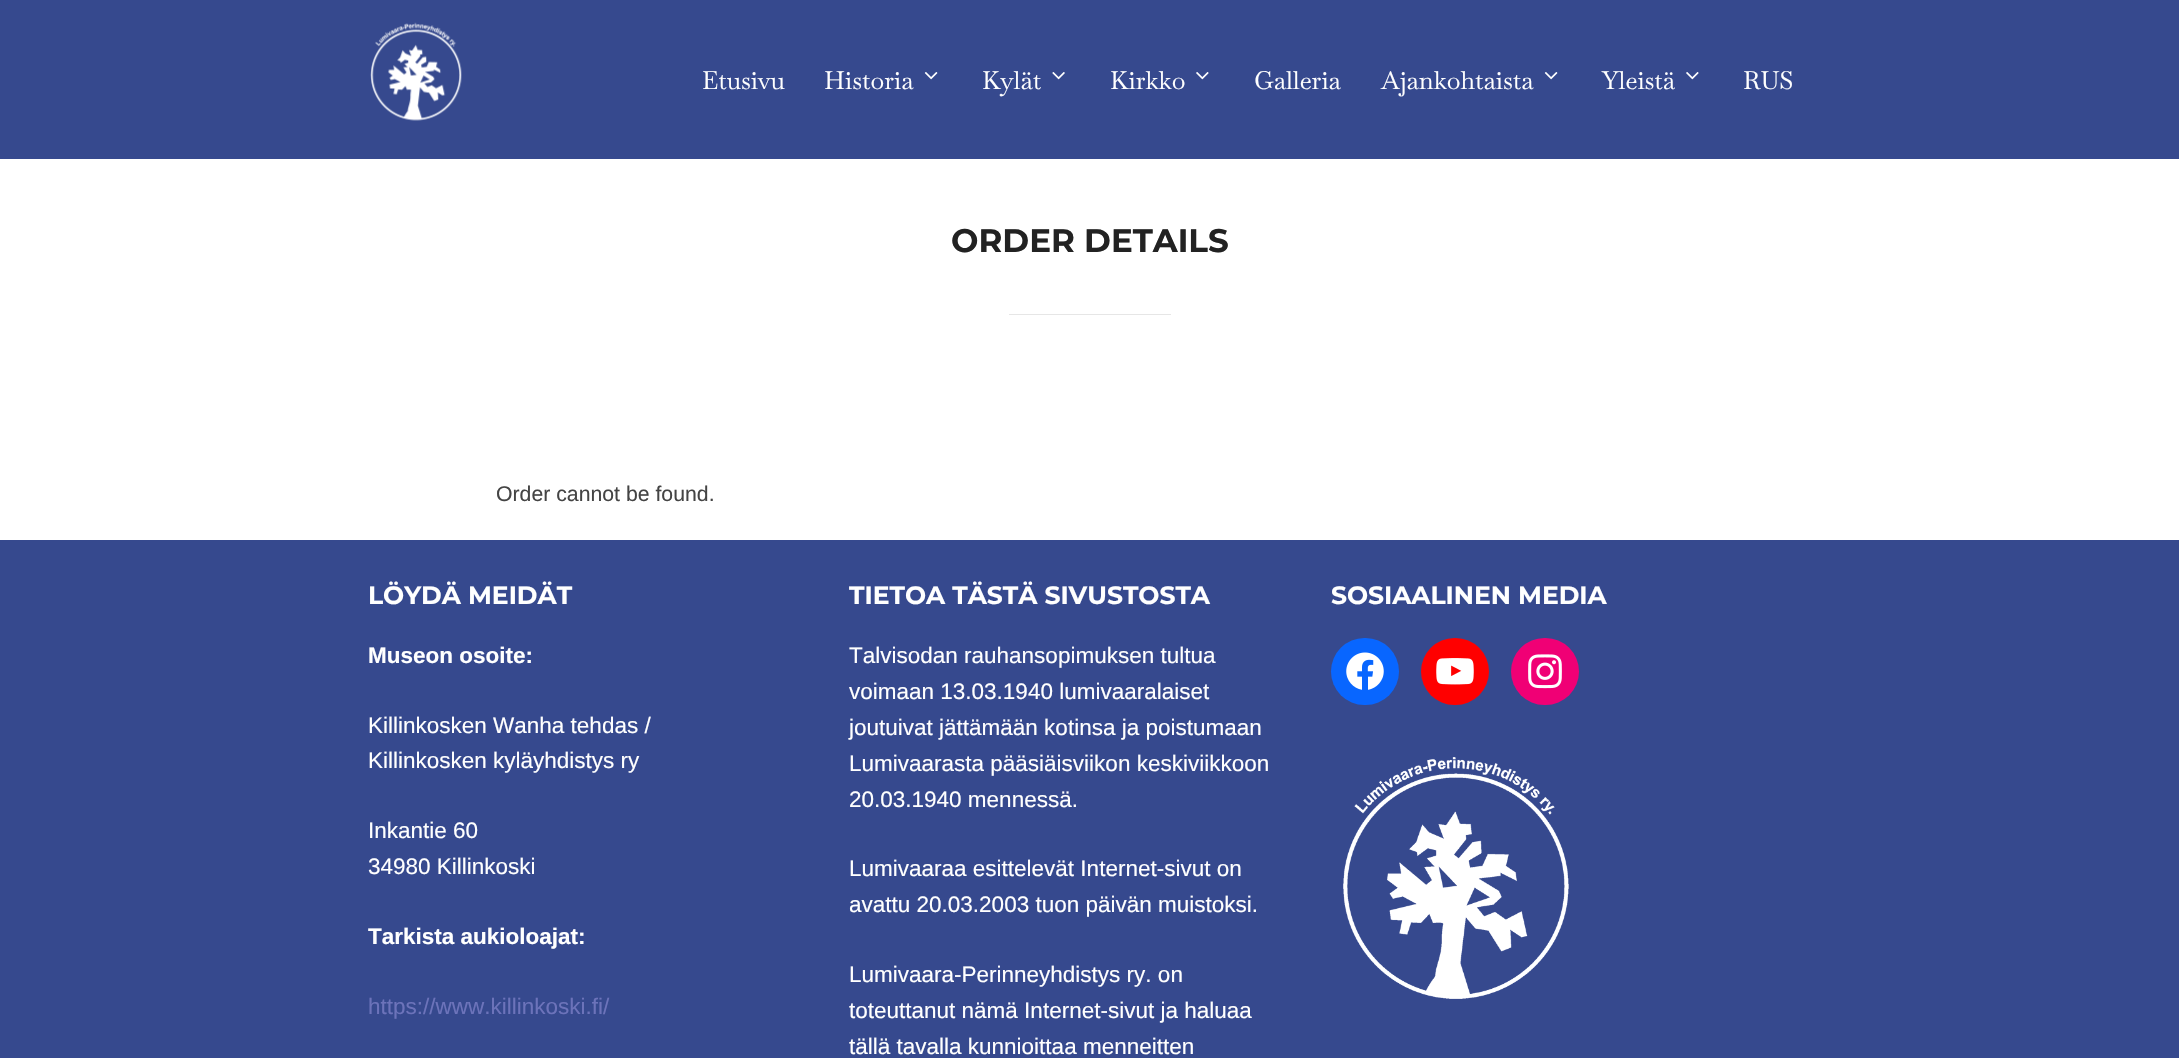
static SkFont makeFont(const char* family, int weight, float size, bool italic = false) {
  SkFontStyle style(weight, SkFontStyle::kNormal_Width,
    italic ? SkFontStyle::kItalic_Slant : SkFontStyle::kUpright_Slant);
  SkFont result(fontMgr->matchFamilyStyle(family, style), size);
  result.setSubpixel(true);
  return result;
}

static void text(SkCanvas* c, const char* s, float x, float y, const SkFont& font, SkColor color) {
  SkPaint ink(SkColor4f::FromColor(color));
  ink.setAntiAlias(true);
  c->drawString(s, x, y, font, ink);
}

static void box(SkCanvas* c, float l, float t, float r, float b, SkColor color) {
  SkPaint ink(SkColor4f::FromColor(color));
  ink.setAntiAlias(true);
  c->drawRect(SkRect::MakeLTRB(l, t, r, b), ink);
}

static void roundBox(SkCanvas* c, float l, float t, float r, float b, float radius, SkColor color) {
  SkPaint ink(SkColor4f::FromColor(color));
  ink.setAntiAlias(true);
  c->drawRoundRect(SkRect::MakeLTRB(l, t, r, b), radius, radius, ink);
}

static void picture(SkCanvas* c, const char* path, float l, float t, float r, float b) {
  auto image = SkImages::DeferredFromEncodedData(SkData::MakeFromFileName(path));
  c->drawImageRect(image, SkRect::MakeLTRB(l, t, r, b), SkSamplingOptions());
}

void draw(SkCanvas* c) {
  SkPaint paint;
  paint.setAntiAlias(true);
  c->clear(0xffffffff);
  box(c, 0, 0, 2179, 159, 0xff36498e);
  picture(c, "img_01.png", 370, 22, 462, 121);
  SkFont face1 = makeFont("Baskervville", 400, 25);
  text(c, "Etusivu", 702, 89, face1, 0xffffffff);
  text(c, "Historia", 824, 89, face1, 0xffffffff);
  picture(c, "img_02.png", 924, 72, 938, 80);
  text(c, "Kylät", 982, 89, face1, 0xffffffff);
  picture(c, "img_03.png", 1052, 72, 1065, 80);
  text(c, "Kirkko", 1110, 89, face1, 0xffffffff);
  picture(c, "img_04.png", 1196, 72, 1209, 80);
  text(c, "Galleria", 1254, 89, face1, 0xffffffff);
  text(c, "Ajankohtaista", 1381, 89, face1, 0xffffffff);
  picture(c, "img_02.png", 1544, 72, 1558, 80);
  text(c, "Yleistä", 1602, 89, face1, 0xffffffff);
  picture(c, "img_04.png", 1686, 72, 1699, 80);
  text(c, "RUS", 1743, 89, face1, 0xffffffff);
  SkFont face2 = makeFont("Montserrat", 100, 32.5f);
  text(c, "ORDER DETAILS", 951, 252, face2, 0xff222222);
  box(c, 1009, 314, 1171, 315, 0xffe6e6e6);
  SkFont face3 = makeFont("Liberation Sans", 400, 21.25f);
  text(c, "Order cannot be found.", 496, 501, face3, 0xff444444);
  box(c, 0, 540, 2179, 1058, 0xff36498e);
  SkFont face4 = makeFont("Montserrat", 100, 25);
  text(c, "LÖYDÄ MEIDÄT", 368, 604, face4, 0xffffffff);
  SkFont face5 = makeFont("Liberation Sans", 700, 22.5f);
  text(c, "Museon osoite:", 368, 663, face5, 0xffffffff);
  SkFont face6 = makeFont("Liberation Sans", 400, 22.5f);
  text(c, "Killinkosken Wanha tehdas /", 368, 733, face6, 0xffffffff);
  text(c, "Killinkosken kyläyhdistys ry", 368, 768, face6, 0xffffffff);
  text(c, "Inkantie 60", 368, 838, face6, 0xffffffff);
  text(c, "34980 Killinkoski", 368, 874, face6, 0xffffffff);
  text(c, "Tarkista aukioloajat:", 368, 944, face5, 0xffffffff);
  text(c, "https://www.killinkoski.fi/", 368, 1014, face6, 0xff6c73ba);
  text(c, "TIETOA TÄSTÄ SIVUSTOSTA", 849, 604, face4, 0xffffffff);
  text(c, "Talvisodan rauhansopimuksen tultua", 849, 663, face6, 0xffffffff);
  text(c, "voimaan 13.03.1940 lumivaaralaiset", 849, 699, face6, 0xffffffff);
  text(c, "joutuivat jättämään kotinsa ja poistumaan", 849, 735, face6, 0xffffffff);
  text(c, "Lumivaarasta pääsiäisviikon keskiviikkoon", 849, 771, face6, 0xffffffff);
  text(c, "20.03.1940 mennessä.", 849, 807, face6, 0xffffffff);
  text(c, "Lumivaaraa esittelevät Internet-sivut on", 849, 876, face6, 0xffffffff);
  text(c, "avattu 20.03.2003 tuon päivän muistoksi.", 849, 912, face6, 0xffffffff);
  text(c, "Lumivaara-Perinneyhdistys ry. on", 849, 982, face6, 0xffffffff);
  text(c, "toteuttanut nämä Internet-sivut ja haluaa", 849, 1018, face6, 0xffffffff);
  text(c, "tällä tavalla kunnioittaa menneitten", 849, 1054, face6, 0xffffffff);
  text(c, "SOSIAALINEN MEDIA", 1331, 604, face4, 0xffffffff);
  roundBox(c, 1331, 638, 1399, 705, 33.5f, 0xff0866ff);
  picture(c, "img_05.png", 1346, 652, 1384, 690);
  roundBox(c, 1421, 638, 1489, 705, 33.5f, 0xffff0000);
  picture(c, "img_06.png", 1436, 658, 1474, 685);
  roundBox(c, 1511, 638, 1579, 705, 33.5f, 0xfff00075);
  picture(c, "img_07.png", 1528, 654, 1562, 689);
  picture(c, "img_08.png", 1343, 757, 1569, 999);
}
